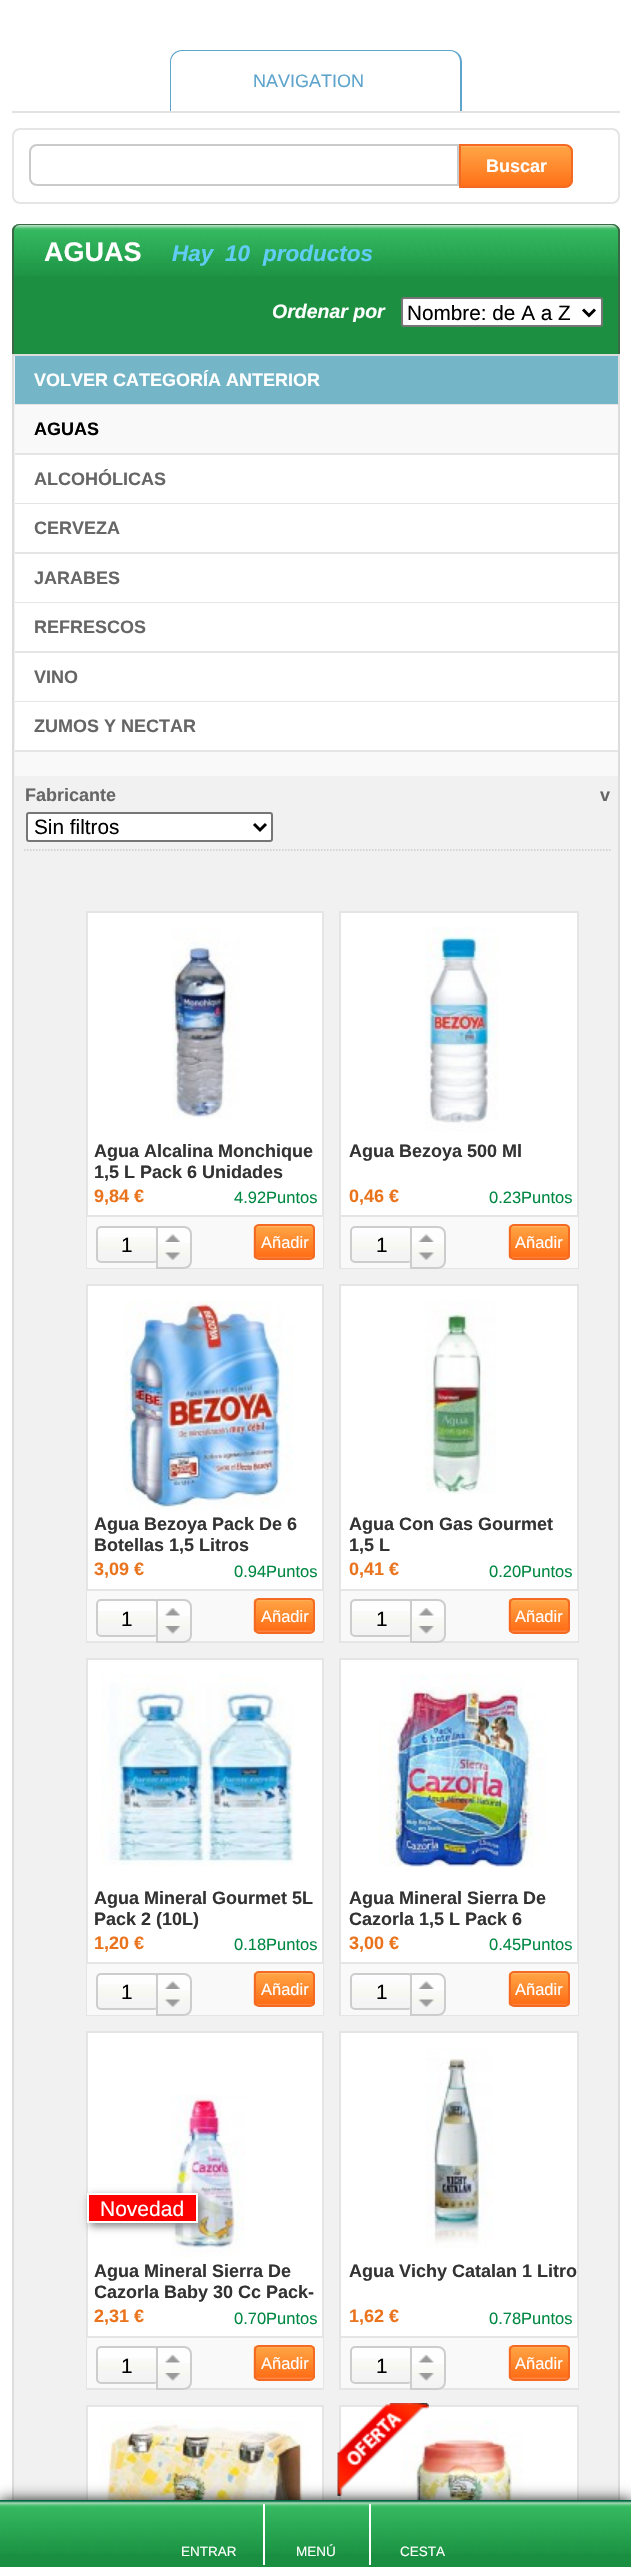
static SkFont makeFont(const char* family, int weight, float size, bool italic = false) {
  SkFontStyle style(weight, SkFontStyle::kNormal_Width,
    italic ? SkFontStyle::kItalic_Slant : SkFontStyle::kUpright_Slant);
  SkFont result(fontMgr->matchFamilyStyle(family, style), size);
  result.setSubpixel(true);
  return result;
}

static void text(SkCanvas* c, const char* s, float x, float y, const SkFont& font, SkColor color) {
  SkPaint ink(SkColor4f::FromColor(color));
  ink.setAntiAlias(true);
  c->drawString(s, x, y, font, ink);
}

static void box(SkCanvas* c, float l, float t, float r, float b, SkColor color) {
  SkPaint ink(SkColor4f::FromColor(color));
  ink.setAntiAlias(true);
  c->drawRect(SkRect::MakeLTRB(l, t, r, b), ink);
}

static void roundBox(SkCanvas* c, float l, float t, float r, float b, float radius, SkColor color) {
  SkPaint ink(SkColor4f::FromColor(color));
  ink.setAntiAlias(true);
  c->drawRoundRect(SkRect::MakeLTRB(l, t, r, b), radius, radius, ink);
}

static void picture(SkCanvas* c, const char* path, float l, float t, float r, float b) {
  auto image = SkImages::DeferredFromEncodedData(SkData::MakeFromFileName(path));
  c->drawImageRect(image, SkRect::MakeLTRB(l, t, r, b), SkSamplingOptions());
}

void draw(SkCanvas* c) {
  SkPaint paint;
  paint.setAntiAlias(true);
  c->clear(0xffffffff);
  box(c, 12, 111, 620, 113, 0xffe2e2e0);
  paint.setColor(0xff5ea4cc);
  c->drawPath(SkPathBuilder(SkPathFillType::kEvenOdd).moveTo(182, 50).lineTo(450, 50).cubicTo(457, 50, 462, 55, 462, 62).lineTo(462, 111).lineTo(170, 111).lineTo(170, 62).cubicTo(170, 55, 175, 50, 182, 50).close().moveTo(182, 51).lineTo(450, 51).cubicTo(456, 51, 460, 56, 460, 62).lineTo(460, 111).lineTo(171, 111).lineTo(171, 62).cubicTo(171, 56, 176, 51, 182, 51).close().detach(), paint);
  SkFont face1 = makeFont("Liberation Sans", 400, 18);
  text(c, "NAVIGATION", 253, 87, face1, 0xff5ea4cc);
  paint.setStyle(SkPaint::kStroke_Style);
  paint.setStrokeWidth(2);
  paint.setColor(0xffe5e5e5);
  c->drawRoundRect(SkRect::MakeLTRB(13, 129, 619, 203), 7, 7, paint);
  paint.setColor(0xffcacaca);
  c->drawPath(SkPathBuilder().moveTo(37, 145).lineTo(458, 145).lineTo(458, 185).lineTo(37, 185).cubicTo(33, 185, 30, 182, 30, 178).lineTo(30, 152).cubicTo(30, 148, 33, 145, 37, 145).close().detach(), paint);
  picture(c, "img_01.png", 461, 145, 573, 188);
  paint.setColor(0xfff56a22);
  c->drawPath(SkPathBuilder().moveTo(460, 145).lineTo(565, 145).cubicTo(569, 145, 572, 148, 572, 152).lineTo(572, 180).cubicTo(572, 184, 569, 187, 565, 187).lineTo(460, 187).close().detach(), paint);
  SkFont face2 = makeFont("Liberation Sans", 700, 18);
  text(c, "Buscar", 486, 172, face2, 0xffffffff);
  paint.setStyle(SkPaint::kFill_Style);
  paint.setColor(0xff1c8f41);
  c->drawPath(SkPathBuilder().moveTo(20, 224).lineTo(612, 224).cubicTo(616.5f, 224, 620, 227.5f, 620, 232).lineTo(620, 354).lineTo(12, 354).lineTo(12, 232).cubicTo(12, 227.5f, 15.5f, 224, 20, 224).close().detach(), paint);
  picture(c, "img_02.png", 12, 225, 620, 276);
  paint.setColor(0xff3b6945);
  c->drawPath(SkPathBuilder(SkPathFillType::kEvenOdd).moveTo(20, 224).lineTo(612, 224).cubicTo(616, 224, 620, 227, 620, 231).lineTo(620, 354).lineTo(12, 354).lineTo(12, 231).cubicTo(12, 227, 15, 224, 20, 224).close().moveTo(20, 225).lineTo(612, 225).cubicTo(615, 225, 618, 228, 618, 231).lineTo(618, 354).lineTo(14, 354).lineTo(14, 231).cubicTo(14, 228, 16, 225, 20, 225).close().detach(), paint);
  SkFont face3 = makeFont("Liberation Sans", 700, 27);
  text(c, "AGUAS", 44, 261, face3, 0xffffffff);
  SkFont face4 = makeFont("Liberation Sans", 700, 22.5f, true);
  text(c, "Hay", 172, 261, face4, 0xff61cdf6);
  text(c, "10", 225, 261, face4, 0xff61cdf6);
  text(c, "productos", 263, 261, face4, 0xff61cdf6);
  SkFont face5 = makeFont("Liberation Sans", 700, 19.5f, true);
  text(c, "Ordenar por", 272, 318, face5, 0xffffffff);
  paint.setColor(0xffffffff);
  c->drawRoundRect(SkRect::MakeLTRB(402, 298, 602, 326), 2, 2, paint);
  paint.setStyle(SkPaint::kStroke_Style);
  paint.setColor(0xff767676);
  c->drawRoundRect(SkRect::MakeLTRB(402, 298, 602, 326), 2, 2, paint);
  paint.setStrokeWidth(3);
  paint.setColor(0xff000000);
  c->drawPath(SkPathBuilder().moveTo(583, 309.5f).lineTo(589, 315.5f).lineTo(595, 309.5f).detach(), paint);
  SkFont face6 = makeFont("Liberation Sans", 400, 20.75f);
  text(c, "Nombre: de A a Z", 407, 320, face6, 0xff000000);
  box(c, 14, 356, 618, 2500, 0xfff1f1f1);
  paint.setStrokeWidth(2);
  paint.setColor(0xffdddddd);
  c->drawRect(SkRect::MakeLTRB(13, 355, 619, 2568), paint);
  box(c, 15, 405, 618, 776, 0xfff9f9f9);
  box(c, 15, 404, 618, 405, 0xffe5e5e5);
  box(c, 15, 356, 618, 404, 0xff74b6c7);
  text(c, "VOLVER CATEGORÍA ANTERIOR", 34, 386, face2, 0xffffffff);
  box(c, 15, 453, 618, 455, 0xffe5e5e5);
  text(c, "AGUAS", 34, 435, face2, 0xff000000);
  box(c, 15, 503, 618, 504, 0xffe5e5e5);
  box(c, 15, 455, 618, 503, 0xffffffff);
  text(c, "ALCOHÓLICAS", 34, 485, face2, 0xff666666);
  box(c, 15, 552, 618, 554, 0xffe5e5e5);
  box(c, 15, 504, 618, 552, 0xffffffff);
  text(c, "CERVEZA", 34, 534, face2, 0xff666666);
  box(c, 15, 602, 618, 603, 0xffe5e5e5);
  box(c, 15, 554, 618, 602, 0xffffffff);
  text(c, "JARABES", 34, 584, face2, 0xff666666);
  box(c, 15, 651, 618, 653, 0xffe5e5e5);
  box(c, 15, 603, 618, 651, 0xffffffff);
  text(c, "REFRESCOS", 34, 633, face2, 0xff666666);
  box(c, 15, 701, 618, 702, 0xffe5e5e5);
  box(c, 15, 653, 618, 701, 0xffffffff);
  text(c, "VINO", 34, 683, face2, 0xff666666);
  box(c, 15, 750, 618, 752, 0xffe5e5e5);
  box(c, 15, 702, 618, 750, 0xffffffff);
  text(c, "ZUMOS Y NECTAR", 34, 732, face2, 0xff666666);
  paint.setStrokeWidth(1.5f);
  paint.setColor(0xffcccccc);
  paint.setPathEffect(SkDashPathEffect::Make({{1.5f, 1.5f}}, 0));
  c->drawPath(SkPathBuilder().moveTo(24, 850).lineTo(610.5f, 850).detach(), paint);
  paint.setPathEffect(nullptr);
  text(c, "Fabricante", 25, 801, face2, 0xff666666);
  text(c, "v", 600, 801, face2, 0xff666666);
  paint.setStyle(SkPaint::kFill_Style);
  paint.setColor(0xffffffff);
  c->drawRoundRect(SkRect::MakeLTRB(27, 813, 272, 841), 2, 2, paint);
  paint.setStyle(SkPaint::kStroke_Style);
  paint.setStrokeWidth(2);
  paint.setColor(0xff767676);
  c->drawRoundRect(SkRect::MakeLTRB(27, 813, 272, 841), 2, 2, paint);
  paint.setStrokeWidth(3);
  paint.setColor(0xff000000);
  c->drawPath(SkPathBuilder().moveTo(254, 824).lineTo(260, 830).lineTo(266, 824).detach(), paint);
  text(c, "Sin filtros", 34, 834, face6, 0xff000000);
  box(c, 88, 913, 322, 1215, 0xffffffff);
  paint.setStrokeWidth(2);
  paint.setColor(0xffe5e5e5);
  c->drawRect(SkRect::MakeLTRB(87, 912, 323, 1268), paint);
  picture(c, "img_03.png", 172, 927, 240, 1119);
  text(c, "Agua Alcalina Monchique", 94, 1157, face2, 0xff333333);
  text(c, "1,5 L Pack 6 Unidades", 94, 1178, face2, 0xff333333);
  text(c, "9,84 €", 94, 1202, face2, 0xffea741d);
  SkFont face7 = makeFont("Liberation Sans", 400, 16.5f);
  text(c, "4.92Puntos", 234, 1203, face7, 0xff008843);
  box(c, 87, 1217, 323, 1268, 0xfff9f9f9);
  box(c, 87, 1215, 323, 1217, 0xffe5e5e5);
  roundBox(c, 96, 1226, 159, 1263, 5, 0xfffffeff);
  picture(c, "img_04.png", 96, 1237, 156, 1262);
  paint.setColor(0xffcdcdcd);
  c->drawRoundRect(SkRect::MakeLTRB(97, 1227, 158, 1262), 4, 4, paint);
  text(c, "1", 121, 1252, face6, 0xff000000);
  paint.setStyle(SkPaint::kFill_Style);
  paint.setColor(0xfffffeff);
  c->drawPath(SkPathBuilder().moveTo(156, 1226).lineTo(184, 1226).cubicTo(188.5f, 1226, 192, 1229.5f, 192, 1234).lineTo(192, 1261).cubicTo(192, 1265.5f, 188.5f, 1269, 184, 1269).lineTo(156, 1269).close().detach(), paint);
  picture(c, "img_05.png", 158, 1243, 192, 1268);
  paint.setStyle(SkPaint::kStroke_Style);
  paint.setColor(0xffcdcdcd);
  c->drawPath(SkPathBuilder().moveTo(157, 1227).lineTo(184, 1227).cubicTo(188, 1227, 191, 1230, 191, 1234).lineTo(191, 1261).cubicTo(191, 1265, 188, 1268, 184, 1268).lineTo(157, 1268).close().detach(), paint);
  picture(c, "img_06.png", 165, 1234, 180, 1242);
  picture(c, "img_07.png", 165, 1252, 180, 1260);
  picture(c, "img_08.png", 253, 1225, 315, 1259);
  paint.setColor(0xfff56a22);
  c->drawRoundRect(SkRect::MakeLTRB(255, 1225, 314, 1259), 4, 4, paint);
  text(c, "Añadir", 261, 1248, face7, 0xffffffff);
  box(c, 341, 913, 577, 1215, 0xffffffff);
  paint.setColor(0xffe5e5e5);
  c->drawRect(SkRect::MakeLTRB(340, 912, 578, 1268), paint);
  picture(c, "img_09.png", 425, 927, 499, 1131);
  text(c, "Agua Bezoya 500 Ml", 349, 1157, face2, 0xff333333);
  text(c, "0,46 €", 349, 1202, face2, 0xffea741d);
  text(c, "0.23Puntos", 489, 1203, face7, 0xff008843);
  box(c, 341, 1217, 578, 1268, 0xfff9f9f9);
  box(c, 341, 1215, 578, 1217, 0xffe5e5e5);
  picture(c, "img_10.png", 350, 1226, 410, 1262);
  paint.setColor(0xffcdcdcd);
  c->drawRoundRect(SkRect::MakeLTRB(351, 1227, 412, 1262), 4, 4, paint);
  text(c, "1", 376, 1252, face6, 0xff000000);
  paint.setStyle(SkPaint::kFill_Style);
  paint.setColor(0xfffffeff);
  c->drawPath(SkPathBuilder().moveTo(410, 1226).lineTo(438, 1226).cubicTo(442.5f, 1226, 446, 1229.5f, 446, 1234).lineTo(446, 1261).cubicTo(446, 1265.5f, 442.5f, 1269, 438, 1269).lineTo(410, 1269).close().detach(), paint);
  picture(c, "img_11.png", 409, 1243, 446, 1268);
  paint.setStyle(SkPaint::kStroke_Style);
  paint.setColor(0xffcdcdcd);
  c->drawPath(SkPathBuilder().moveTo(411, 1227).lineTo(438, 1227).cubicTo(442, 1227, 445, 1230, 445, 1234).lineTo(445, 1261).cubicTo(445, 1265, 442, 1268, 438, 1268).lineTo(411, 1268).close().detach(), paint);
  picture(c, "img_12.png", 418, 1234, 434, 1242);
  picture(c, "img_13.png", 418, 1252, 434, 1260);
  picture(c, "img_14.png", 508, 1225, 570, 1259);
  paint.setColor(0xfff56a22);
  c->drawRoundRect(SkRect::MakeLTRB(510, 1225, 569, 1259), 4, 4, paint);
  text(c, "Añadir", 515, 1248, face7, 0xffffffff);
  box(c, 88, 1286, 322, 1589, 0xffffffff);
  paint.setColor(0xffe5e5e5);
  c->drawRect(SkRect::MakeLTRB(87, 1285, 323, 1642), paint);
  picture(c, "img_15.png", 124, 1300, 293, 1510);
  text(c, "Agua Bezoya Pack De 6", 94, 1530, face2, 0xff333333);
  text(c, "Botellas 1,5 Litros", 94, 1551, face2, 0xff333333);
  text(c, "3,09 €", 94, 1575, face2, 0xffea741d);
  text(c, "0.94Puntos", 234, 1577, face7, 0xff008843);
  box(c, 87, 1591, 323, 1641, 0xfff9f9f9);
  box(c, 87, 1589, 323, 1591, 0xffe5e5e5);
  roundBox(c, 96, 1599, 159, 1637, 5, 0xfffffeff);
  picture(c, "img_16.png", 96, 1611, 156, 1635);
  paint.setColor(0xffcdcdcd);
  c->drawRoundRect(SkRect::MakeLTRB(97, 1600, 158, 1636), 4, 4, paint);
  text(c, "1", 121, 1626, face6, 0xff000000);
  paint.setStyle(SkPaint::kFill_Style);
  paint.setColor(0xfffffeff);
  c->drawPath(SkPathBuilder().moveTo(156, 1599).lineTo(184, 1599).cubicTo(188.5f, 1599, 192, 1602.5f, 192, 1607).lineTo(192, 1635).cubicTo(192, 1639.5f, 188.5f, 1643, 184, 1643).lineTo(156, 1643).close().detach(), paint);
  picture(c, "img_17.png", 158, 1616, 192, 1641);
  paint.setStyle(SkPaint::kStroke_Style);
  paint.setColor(0xffcdcdcd);
  c->drawPath(SkPathBuilder().moveTo(157, 1600).lineTo(184, 1600).cubicTo(188, 1600, 191, 1603, 191, 1607).lineTo(191, 1635).cubicTo(191, 1639, 188, 1642, 184, 1642).lineTo(157, 1642).close().detach(), paint);
  picture(c, "img_18.png", 165, 1608, 180, 1616);
  picture(c, "img_19.png", 165, 1626, 180, 1634);
  picture(c, "img_20.png", 253, 1599, 315, 1632);
  paint.setColor(0xfff56a22);
  c->drawRoundRect(SkRect::MakeLTRB(255, 1599, 314, 1633), 4, 4, paint);
  text(c, "Añadir", 261, 1622, face7, 0xffffffff);
  box(c, 341, 1286, 577, 1589, 0xffffffff);
  paint.setColor(0xffe5e5e5);
  c->drawRect(SkRect::MakeLTRB(340, 1285, 578, 1642), paint);
  picture(c, "img_21.png", 425, 1301, 496, 1494);
  text(c, "Agua Con Gas Gourmet", 349, 1530, face2, 0xff333333);
  text(c, "1,5 L", 349, 1551, face2, 0xff333333);
  text(c, "0,41 €", 349, 1575, face2, 0xffea741d);
  text(c, "0.20Puntos", 489, 1577, face7, 0xff008843);
  box(c, 341, 1591, 578, 1641, 0xfff9f9f9);
  box(c, 341, 1589, 578, 1591, 0xffe5e5e5);
  roundBox(c, 350, 1599, 413, 1637, 5, 0xfffffeff);
  picture(c, "img_22.png", 350, 1611, 410, 1635);
  paint.setColor(0xffcdcdcd);
  c->drawRoundRect(SkRect::MakeLTRB(351, 1600, 412, 1636), 4, 4, paint);
  text(c, "1", 376, 1626, face6, 0xff000000);
  paint.setStyle(SkPaint::kFill_Style);
  paint.setColor(0xfffffeff);
  c->drawPath(SkPathBuilder().moveTo(410, 1599).lineTo(438, 1599).cubicTo(442.5f, 1599, 446, 1602.5f, 446, 1607).lineTo(446, 1635).cubicTo(446, 1639.5f, 442.5f, 1643, 438, 1643).lineTo(410, 1643).close().detach(), paint);
  picture(c, "img_23.png", 409, 1617, 446, 1641);
  paint.setStyle(SkPaint::kStroke_Style);
  paint.setColor(0xffcdcdcd);
  c->drawPath(SkPathBuilder().moveTo(411, 1600).lineTo(438, 1600).cubicTo(442, 1600, 445, 1603, 445, 1607).lineTo(445, 1635).cubicTo(445, 1639, 442, 1642, 438, 1642).lineTo(411, 1642).close().detach(), paint);
  picture(c, "img_24.png", 418, 1608, 434, 1616);
  picture(c, "img_25.png", 418, 1626, 434, 1634);
  picture(c, "img_26.png", 508, 1599, 570, 1632);
  paint.setColor(0xfff56a22);
  c->drawRoundRect(SkRect::MakeLTRB(510, 1599, 569, 1633), 4, 4, paint);
  text(c, "Añadir", 515, 1622, face7, 0xffffffff);
  box(c, 88, 1660, 322, 1962, 0xffffffff);
  paint.setColor(0xffe5e5e5);
  c->drawRect(SkRect::MakeLTRB(87, 1659, 323, 2015), paint);
  picture(c, "img_27.png", 101, 1674, 294, 1866);
  text(c, "Agua Mineral Gourmet 5L", 94, 1904, face2, 0xff333333);
  text(c, "Pack 2 (10L)", 94, 1925, face2, 0xff333333);
  text(c, "1,20 €", 94, 1949, face2, 0xffea741d);
  text(c, "0.18Puntos", 234, 1950, face7, 0xff008843);
  box(c, 87, 1964, 323, 2015, 0xfff9f9f9);
  box(c, 87, 1962, 323, 1964, 0xffe5e5e5);
  roundBox(c, 96, 1973, 159, 2010, 5, 0xfffffeff);
  picture(c, "img_04.png", 96, 1984, 156, 2009);
  paint.setColor(0xffcdcdcd);
  c->drawRoundRect(SkRect::MakeLTRB(97, 1974, 158, 2009), 4, 4, paint);
  text(c, "1", 121, 1999, face6, 0xff000000);
  paint.setStyle(SkPaint::kFill_Style);
  paint.setColor(0xfffffeff);
  c->drawPath(SkPathBuilder().moveTo(156, 1973).lineTo(184, 1973).cubicTo(188.5f, 1973, 192, 1976.5f, 192, 1981).lineTo(192, 2008).cubicTo(192, 2012.5f, 188.5f, 2016, 184, 2016).lineTo(156, 2016).close().detach(), paint);
  picture(c, "img_05.png", 158, 1990, 192, 2015);
  paint.setStyle(SkPaint::kStroke_Style);
  paint.setColor(0xffcdcdcd);
  c->drawPath(SkPathBuilder().moveTo(157, 1974).lineTo(184, 1974).cubicTo(188, 1974, 191, 1977, 191, 1981).lineTo(191, 2008).cubicTo(191, 2012, 188, 2015, 184, 2015).lineTo(157, 2015).close().detach(), paint);
  picture(c, "img_06.png", 165, 1981, 180, 1989);
  picture(c, "img_07.png", 165, 1999, 180, 2007);
  picture(c, "img_28.png", 253, 1972, 315, 2006);
  paint.setColor(0xfff56a22);
  c->drawRoundRect(SkRect::MakeLTRB(255, 1972, 314, 2006), 4, 4, paint);
  text(c, "Añadir", 261, 1995, face7, 0xffffffff);
  box(c, 341, 1660, 577, 1962, 0xffffffff);
  paint.setColor(0xffe5e5e5);
  c->drawRect(SkRect::MakeLTRB(340, 1659, 578, 2015), paint);
  picture(c, "img_29.png", 378, 1674, 546, 1867);
  text(c, "Agua Mineral Sierra De", 349, 1904, face2, 0xff333333);
  text(c, "Cazorla 1,5 L Pack 6", 349, 1925, face2, 0xff333333);
  text(c, "3,00 €", 349, 1949, face2, 0xffea741d);
  text(c, "0.45Puntos", 489, 1950, face7, 0xff008843);
  box(c, 341, 1964, 578, 2015, 0xfff9f9f9);
  box(c, 341, 1962, 578, 1964, 0xffe5e5e5);
  picture(c, "img_10.png", 350, 1973, 410, 2009);
  paint.setColor(0xffcdcdcd);
  c->drawRoundRect(SkRect::MakeLTRB(351, 1974, 412, 2009), 4, 4, paint);
  text(c, "1", 376, 1999, face6, 0xff000000);
  paint.setStyle(SkPaint::kFill_Style);
  paint.setColor(0xfffffeff);
  c->drawPath(SkPathBuilder().moveTo(410, 1973).lineTo(438, 1973).cubicTo(442.5f, 1973, 446, 1976.5f, 446, 1981).lineTo(446, 2008).cubicTo(446, 2012.5f, 442.5f, 2016, 438, 2016).lineTo(410, 2016).close().detach(), paint);
  picture(c, "img_11.png", 409, 1990, 446, 2015);
  paint.setStyle(SkPaint::kStroke_Style);
  paint.setColor(0xffcdcdcd);
  c->drawPath(SkPathBuilder().moveTo(411, 1974).lineTo(438, 1974).cubicTo(442, 1974, 445, 1977, 445, 1981).lineTo(445, 2008).cubicTo(445, 2012, 442, 2015, 438, 2015).lineTo(411, 2015).close().detach(), paint);
  picture(c, "img_12.png", 418, 1981, 434, 1989);
  picture(c, "img_13.png", 418, 1999, 434, 2007);
  picture(c, "img_30.png", 508, 1972, 570, 2006);
  paint.setColor(0xfff56a22);
  c->drawRoundRect(SkRect::MakeLTRB(510, 1972, 569, 2006), 4, 4, paint);
  text(c, "Añadir", 515, 1995, face7, 0xffffffff);
  box(c, 88, 2033, 322, 2336, 0xffffffff);
  paint.setColor(0xffe5e5e5);
  c->drawRect(SkRect::MakeLTRB(87, 2032, 323, 2389), paint);
  picture(c, "img_31.png", 171, 2095, 245, 2257);
  paint.setStyle(SkPaint::kFill_Style);
  paint.setColor(0xff808080);
  paint.setMaskFilter(SkMaskFilter::MakeBlur(kNormal_SkBlurStyle, 4));
  c->drawRect(SkRect::MakeLTRB(90, 2196, 201, 2226), paint);
  paint.setMaskFilter(nullptr);
  paint.setColor(0xffff0000);
  c->drawRect(SkRect::MakeLTRB(88, 2194, 197, 2222), paint);
  paint.setStyle(SkPaint::kStroke_Style);
  paint.setColor(0xffffffff);
  c->drawRect(SkRect::MakeLTRB(88, 2194, 197, 2222), paint);
  SkFont face8 = makeFont("Liberation Sans", 400, 21);
  text(c, "Novedad", 100, 2216, face8, 0xffffffff);
  text(c, "Agua Mineral Sierra De", 94, 2277, face2, 0xff333333);
  c->save();
  c->clipRect(SkRect::MakeLTRB(95, 2261, 323, 2306));
  text(c, "Cazorla Baby 30 Cc Pack-", 94, 2298, face2, 0xff333333);
  c->restore();
  text(c, "2,31 €", 94, 2322, face2, 0xffea741d);
  text(c, "0.70Puntos", 234, 2324, face7, 0xff008843);
  box(c, 87, 2338, 323, 2388, 0xfff9f9f9);
  box(c, 87, 2336, 323, 2338, 0xffe5e5e5);
  roundBox(c, 96, 2346, 159, 2384, 5, 0xfffffeff);
  picture(c, "img_16.png", 96, 2358, 156, 2382);
  paint.setColor(0xffcdcdcd);
  c->drawRoundRect(SkRect::MakeLTRB(97, 2347, 158, 2383), 4, 4, paint);
  text(c, "1", 121, 2373, face6, 0xff000000);
  paint.setStyle(SkPaint::kFill_Style);
  paint.setColor(0xfffffeff);
  c->drawPath(SkPathBuilder().moveTo(156, 2346).lineTo(184, 2346).cubicTo(188.5f, 2346, 192, 2349.5f, 192, 2354).lineTo(192, 2382).cubicTo(192, 2386.5f, 188.5f, 2390, 184, 2390).lineTo(156, 2390).close().detach(), paint);
  picture(c, "img_32.png", 158, 2363, 192, 2388);
  paint.setStyle(SkPaint::kStroke_Style);
  paint.setColor(0xffcdcdcd);
  c->drawPath(SkPathBuilder().moveTo(157, 2347).lineTo(184, 2347).cubicTo(188, 2347, 191, 2350, 191, 2354).lineTo(191, 2382).cubicTo(191, 2386, 188, 2389, 184, 2389).lineTo(157, 2389).close().detach(), paint);
  picture(c, "img_18.png", 165, 2355, 180, 2363);
  picture(c, "img_19.png", 165, 2373, 180, 2381);
  picture(c, "img_33.png", 253, 2346, 315, 2379);
  paint.setColor(0xfff56a22);
  c->drawRoundRect(SkRect::MakeLTRB(255, 2346, 314, 2380), 4, 4, paint);
  text(c, "Añadir", 261, 2369, face7, 0xffffffff);
  box(c, 341, 2033, 577, 2336, 0xffffffff);
  paint.setColor(0xffe5e5e5);
  c->drawRect(SkRect::MakeLTRB(340, 2032, 578, 2389), paint);
  picture(c, "img_34.png", 426, 2048, 493, 2248);
  text(c, "Agua Vichy Catalan 1 Litro", 349, 2277, face2, 0xff333333);
  text(c, "1,62 €", 349, 2322, face2, 0xffea741d);
  text(c, "0.78Puntos", 489, 2324, face7, 0xff008843);
  box(c, 341, 2338, 578, 2388, 0xfff9f9f9);
  box(c, 341, 2336, 578, 2338, 0xffe5e5e5);
  roundBox(c, 350, 2346, 413, 2384, 5, 0xfffffeff);
  picture(c, "img_22.png", 350, 2358, 410, 2382);
  paint.setColor(0xffcdcdcd);
  c->drawRoundRect(SkRect::MakeLTRB(351, 2347, 412, 2383), 4, 4, paint);
  text(c, "1", 376, 2373, face6, 0xff000000);
  paint.setStyle(SkPaint::kFill_Style);
  paint.setColor(0xfffffeff);
  c->drawPath(SkPathBuilder().moveTo(410, 2346).lineTo(438, 2346).cubicTo(442.5f, 2346, 446, 2349.5f, 446, 2354).lineTo(446, 2382).cubicTo(446, 2386.5f, 442.5f, 2390, 438, 2390).lineTo(410, 2390).close().detach(), paint);
  picture(c, "img_35.png", 409, 2364, 446, 2388);
  paint.setStyle(SkPaint::kStroke_Style);
  paint.setColor(0xffcdcdcd);
  c->drawPath(SkPathBuilder().moveTo(411, 2347).lineTo(438, 2347).cubicTo(442, 2347, 445, 2350, 445, 2354).lineTo(445, 2382).cubicTo(445, 2386, 442, 2389, 438, 2389).lineTo(411, 2389).close().detach(), paint);
  picture(c, "img_24.png", 418, 2355, 434, 2363);
  picture(c, "img_25.png", 418, 2373, 434, 2381);
  picture(c, "img_36.png", 508, 2346, 570, 2379);
  paint.setColor(0xfff56a22);
  c->drawRoundRect(SkRect::MakeLTRB(510, 2346, 569, 2380), 4, 4, paint);
  text(c, "Añadir", 515, 2369, face7, 0xffffffff);
  box(c, 88, 2407, 322, 2500, 0xffffffff);
  paint.setColor(0xffe5e5e5);
  c->drawRect(SkRect::MakeLTRB(87, 2406, 323, 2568), paint);
  picture(c, "img_37.png", 101, 2421, 310, 2500);
  box(c, 341, 2407, 577, 2500, 0xffffffff);
  c->drawRect(SkRect::MakeLTRB(340, 2406, 578, 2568), paint);
  picture(c, "img_39.png", 402, 2421, 523, 2500);
  picture(c, "img_38.png", 337, 2403, 429, 2496);
  paint.setStyle(SkPaint::kFill_Style);
  paint.setColor(0xff000000);
  paint.setMaskFilter(SkMaskFilter::MakeBlur(kNormal_SkBlurStyle, 7.5f));
  c->drawRect(SkRect::MakeLTRB(0, 2501, 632, 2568), paint);
  paint.setMaskFilter(nullptr);
  box(c, 0, 2554, 631, 2567, 0xff1a8f41);
  picture(c, "img_40.png", 0, 2500, 631, 2554);
  SkFont face9 = makeFont("Liberation Sans", 400, 13.5f);
  text(c, "ENTRAR", 181, 2556, face9, 0xffffffff);
  box(c, 263, 2504, 265, 2565, 0xffffffff);
  text(c, "MENÚ", 296, 2556, face9, 0xffffffff);
  box(c, 369, 2504, 371, 2565, 0xffffffff);
  text(c, "CESTA", 400, 2556, face9, 0xffffffff);
}
